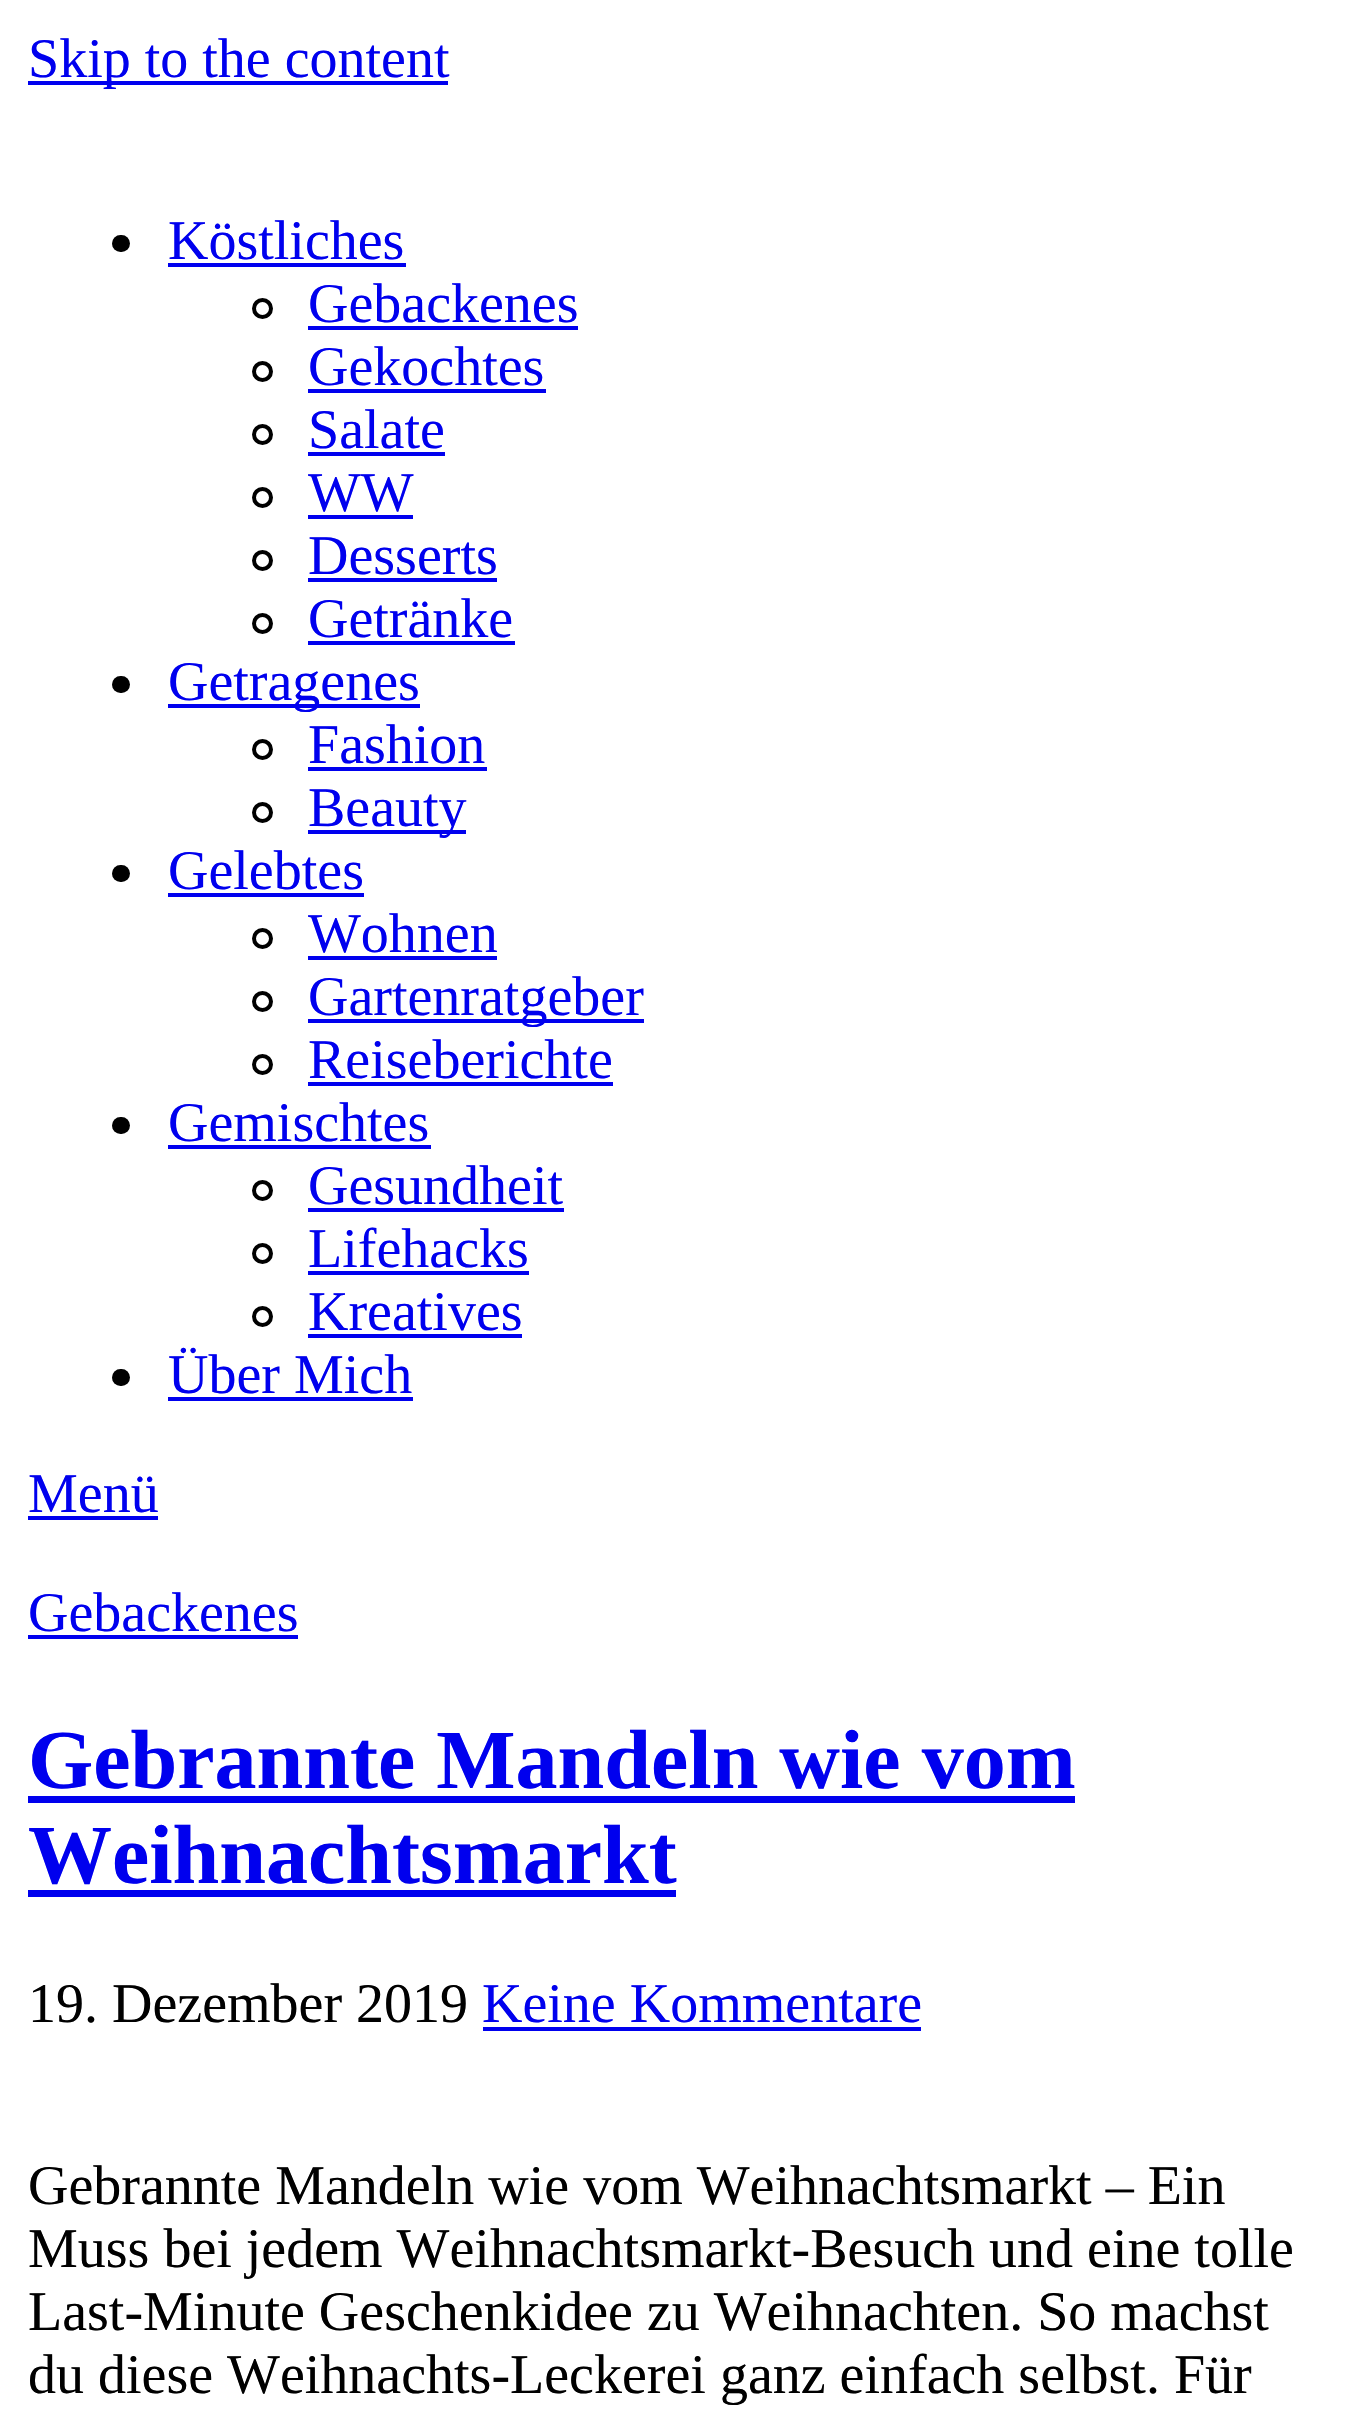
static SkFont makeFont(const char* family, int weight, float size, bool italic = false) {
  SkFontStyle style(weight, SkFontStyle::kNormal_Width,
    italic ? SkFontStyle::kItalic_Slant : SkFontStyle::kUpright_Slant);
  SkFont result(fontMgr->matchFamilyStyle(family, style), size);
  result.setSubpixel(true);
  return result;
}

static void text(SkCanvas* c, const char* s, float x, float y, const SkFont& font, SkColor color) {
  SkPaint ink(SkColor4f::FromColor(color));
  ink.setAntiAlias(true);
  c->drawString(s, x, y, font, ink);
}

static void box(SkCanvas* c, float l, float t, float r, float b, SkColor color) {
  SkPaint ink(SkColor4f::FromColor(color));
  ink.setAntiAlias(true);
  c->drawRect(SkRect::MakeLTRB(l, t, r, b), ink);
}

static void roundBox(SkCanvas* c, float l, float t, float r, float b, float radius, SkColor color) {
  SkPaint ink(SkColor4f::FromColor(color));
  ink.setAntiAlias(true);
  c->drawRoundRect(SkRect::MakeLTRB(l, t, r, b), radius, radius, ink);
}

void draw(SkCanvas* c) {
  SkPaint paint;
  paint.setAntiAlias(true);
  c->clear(0xffffffff);
  box(c, 28, 81, 448, 85, 0xff0000ee);
  SkFont face1 = makeFont("Liberation Serif", 400, 56);
  text(c, "Skip to the content", 28, 77, face1, 0xff0000ee);
  roundBox(c, 112, 235, 130, 252, 8.5f, 0xff000000);
  text(c, "Köstliches", 168, 259, face1, 0xff0000ee);
  box(c, 168, 263, 406, 267, 0xff0000ee);
  paint.setStyle(SkPaint::kStroke_Style);
  paint.setStrokeWidth(4);
  paint.setColor(0xff000000);
  c->drawCircle(262.5f, 308.5f, 8.5f, paint);
  text(c, "Gebackenes", 308, 322, face1, 0xff0000ee);
  box(c, 308, 326, 578, 330, 0xff0000ee);
  c->drawCircle(262.5f, 371.5f, 8.5f, paint);
  text(c, "Gekochtes", 308, 385, face1, 0xff0000ee);
  box(c, 308, 389, 546, 393, 0xff0000ee);
  c->drawCircle(262.5f, 434.5f, 8.5f, paint);
  text(c, "Salate", 308, 448, face1, 0xff0000ee);
  box(c, 308, 452, 445, 456, 0xff0000ee);
  c->drawCircle(262.5f, 497.5f, 8.5f, paint);
  text(c, "WW", 308, 511, face1, 0xff0000ee);
  box(c, 308, 515, 413, 519, 0xff0000ee);
  c->drawCircle(262.5f, 560.5f, 8.5f, paint);
  text(c, "Desserts", 308, 574, face1, 0xff0000ee);
  box(c, 308, 578, 497, 582, 0xff0000ee);
  c->drawCircle(262.5f, 623.5f, 8.5f, paint);
  text(c, "Getränke", 308, 637, face1, 0xff0000ee);
  box(c, 308, 641, 515, 645, 0xff0000ee);
  roundBox(c, 112, 676, 130, 693, 8.5f, 0xff000000);
  box(c, 168, 704, 420, 708, 0xff0000ee);
  text(c, "Getragenes", 168, 700, face1, 0xff0000ee);
  c->drawCircle(262.5f, 749.5f, 8.5f, paint);
  text(c, "Fashion", 308, 763, face1, 0xff0000ee);
  box(c, 308, 767, 487, 771, 0xff0000ee);
  c->drawCircle(262.5f, 812.5f, 8.5f, paint);
  box(c, 308, 830, 466, 834, 0xff0000ee);
  text(c, "Beauty", 308, 826, face1, 0xff0000ee);
  roundBox(c, 112, 865, 130, 882, 8.5f, 0xff000000);
  text(c, "Gelebtes", 168, 889, face1, 0xff0000ee);
  box(c, 168, 893, 364, 897, 0xff0000ee);
  c->drawCircle(262.5f, 938.5f, 8.5f, paint);
  text(c, "Wohnen", 308, 952, face1, 0xff0000ee);
  box(c, 308, 956, 497, 960, 0xff0000ee);
  c->drawCircle(262.5f, 1001.5f, 8.5f, paint);
  box(c, 308, 1019, 644, 1023, 0xff0000ee);
  text(c, "Gartenratgeber", 308, 1015, face1, 0xff0000ee);
  c->drawCircle(262.5f, 1064.5f, 8.5f, paint);
  text(c, "Reiseberichte", 308, 1078, face1, 0xff0000ee);
  box(c, 308, 1082, 613, 1086, 0xff0000ee);
  roundBox(c, 112, 1117, 130, 1134, 8.5f, 0xff000000);
  text(c, "Gemischtes", 168, 1141, face1, 0xff0000ee);
  box(c, 168, 1145, 431, 1149, 0xff0000ee);
  c->drawCircle(262.5f, 1190.5f, 8.5f, paint);
  text(c, "Gesundheit", 308, 1204, face1, 0xff0000ee);
  box(c, 308, 1208, 564, 1212, 0xff0000ee);
  c->drawCircle(262.5f, 1253.5f, 8.5f, paint);
  text(c, "Lifehacks", 308, 1267, face1, 0xff0000ee);
  box(c, 308, 1271, 529, 1275, 0xff0000ee);
  c->drawCircle(262.5f, 1316.5f, 8.5f, paint);
  text(c, "Kreatives", 308, 1330, face1, 0xff0000ee);
  box(c, 308, 1334, 522, 1338, 0xff0000ee);
  roundBox(c, 112, 1369, 130, 1386, 8.5f, 0xff000000);
  text(c, "Über Mich", 168, 1393, face1, 0xff0000ee);
  box(c, 168, 1397, 413, 1401, 0xff0000ee);
  text(c, "Menü", 28, 1512, face1, 0xff0000ee);
  box(c, 28, 1516, 158, 1520, 0xff0000ee);
  text(c, "Gebackenes", 28, 1631, face1, 0xff0000ee);
  box(c, 28, 1635, 298, 1639, 0xff0000ee);
  SkFont face2 = makeFont("Liberation Serif", 700, 84);
  text(c, "Gebrannte Mandeln wie vom", 28, 1788, face2, 0xff0000ee);
  box(c, 28, 1796, 1075, 1803, 0xff0000ee);
  text(c, "Weihnachtsmarkt", 28, 1883, face2, 0xff0000ee);
  box(c, 28, 1890, 676, 1897, 0xff0000ee);
  text(c, "19. Dezember 2019", 28, 2022, face1, 0xff000000);
  text(c, "Keine Kommentare", 482, 2022, face1, 0xff0000ee);
  box(c, 483, 2027, 921, 2031, 0xff0000ee);
  text(c, "Gebrannte Mandeln wie vom Weihnachtsmarkt – Ein", 28, 2204, face1, 0xff000000);
  text(c, "Muss bei jedem Weihnachtsmarkt-Besuch und eine tolle", 28, 2267, face1, 0xff000000);
  text(c, "Last-Minute Geschenkidee zu Weihnachten. So machst", 28, 2330, face1, 0xff000000);
  text(c, "du diese Weihnachts-Leckerei ganz einfach selbst. Für", 28, 2393, face1, 0xff000000);
}
